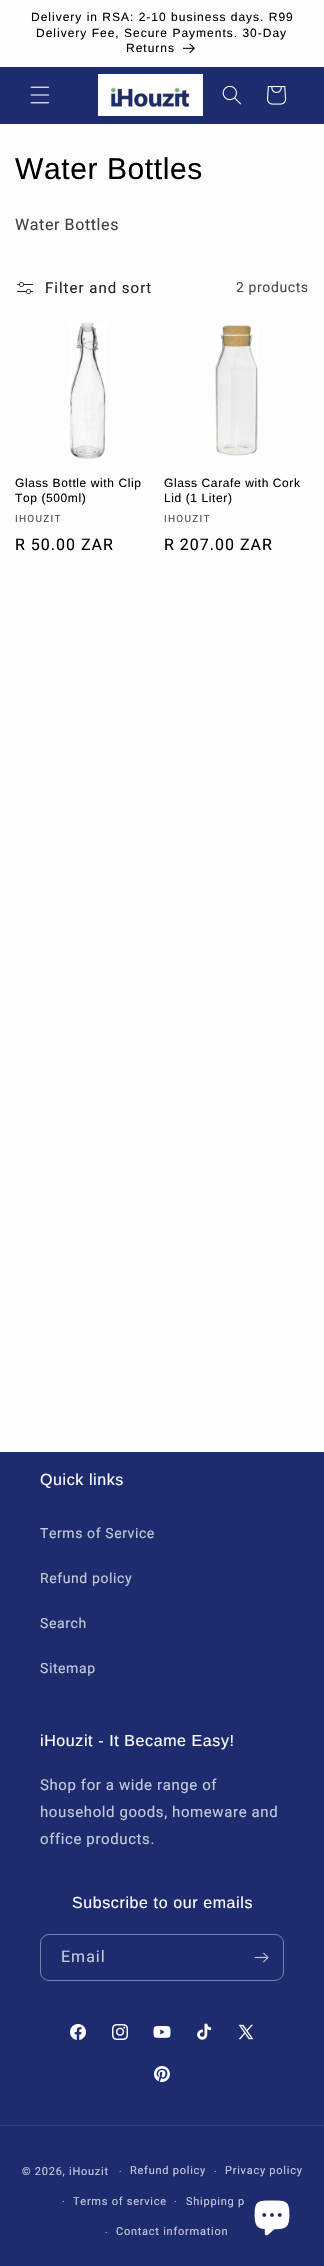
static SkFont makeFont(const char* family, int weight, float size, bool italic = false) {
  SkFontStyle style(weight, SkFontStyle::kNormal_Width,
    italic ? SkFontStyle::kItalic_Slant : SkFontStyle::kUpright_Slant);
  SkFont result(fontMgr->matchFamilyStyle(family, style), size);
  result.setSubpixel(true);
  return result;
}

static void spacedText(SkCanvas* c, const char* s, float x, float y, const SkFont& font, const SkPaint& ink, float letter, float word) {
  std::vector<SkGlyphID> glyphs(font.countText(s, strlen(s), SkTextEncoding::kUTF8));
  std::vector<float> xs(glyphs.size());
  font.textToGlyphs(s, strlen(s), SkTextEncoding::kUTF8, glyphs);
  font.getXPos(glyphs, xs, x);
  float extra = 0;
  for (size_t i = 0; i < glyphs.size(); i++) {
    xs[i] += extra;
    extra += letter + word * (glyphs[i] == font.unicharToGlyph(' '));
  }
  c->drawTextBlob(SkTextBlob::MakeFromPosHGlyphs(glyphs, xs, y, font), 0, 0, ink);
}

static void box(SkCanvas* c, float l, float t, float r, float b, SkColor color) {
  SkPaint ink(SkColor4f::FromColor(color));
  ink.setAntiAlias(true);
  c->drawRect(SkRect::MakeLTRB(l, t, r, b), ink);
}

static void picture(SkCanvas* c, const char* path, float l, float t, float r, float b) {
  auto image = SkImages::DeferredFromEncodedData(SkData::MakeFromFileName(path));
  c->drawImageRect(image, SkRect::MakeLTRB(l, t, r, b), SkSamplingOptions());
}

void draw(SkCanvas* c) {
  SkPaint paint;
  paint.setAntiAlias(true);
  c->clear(0xfffdfdfd);
  SkFont face1 = makeFont("Liberation Sans", 400, 12);
  paint.setColor(0xff000000);
  spacedText(c, "Delivery in RSA: 2-10 business days. R99", 31, 21, face1, paint, 1, 0);
  spacedText(c, "Delivery Fee, Secure Payments. 30-Day", 36, 37, face1, paint, 1, 0);
  spacedText(c, "Returns", 126, 52, face1, paint, 1, 0);
  picture(c, "img_01.png", 183, 43, 195, 53);
  box(c, 0, 67, 324, 124, 0xff1d2c6e);
  picture(c, "img_02.png", 30, 86, 50, 104);
  picture(c, "img_03.png", 98, 74, 203, 116);
  picture(c, "img_04.png", 222, 85, 241, 105);
  picture(c, "img_05.png", 267, 86, 287, 105);
  SkFont face2 = makeFont("Liberation Sans", 400, 30);
  spacedText(c, "Water Bottles", 15, 179, face2, paint, 0.6f, 0);
  SkFont face3 = makeFont("Roboto", 400, 16);
  paint.setColor(0xff3f3f3f);
  spacedText(c, "Water Bottles", 15, 230, face3, paint, 0.6f, 0);
  picture(c, "img_06.png", 17, 282, 33, 294);
  SkFont face4 = makeFont("Roboto", 400, 15);
  paint.setColor(0xff262626);
  spacedText(c, "Filter and sort", 45, 293, face4, paint, 1, 0);
  SkFont face5 = makeFont("Roboto", 400, 14);
  paint.setColor(0xff4c4c4c);
  spacedText(c, "2 products", 236, 292, face5, paint, 0.6f, 0);
  picture(c, "img_07.png", 70, 322, 106, 459);
  paint.setColor(0xff000000);
  spacedText(c, "Glass Bottle with Clip", 15, 487, face1, paint, 0.6f, 0);
  spacedText(c, "Top (500ml)", 15, 502, face1, paint, 0.6f, 0);
  SkFont face6 = makeFont("Roboto", 400, 10);
  paint.setColor(0xff4c4c4c);
  spacedText(c, "IHOUZIT", 15, 522, face6, paint, 1.25f, 0);
  paint.setColor(0xff000000);
  spacedText(c, "R 50.00 ZAR", 15, 550, face3, paint, 1, 0);
  picture(c, "img_08.png", 215, 325, 258, 456);
  spacedText(c, "Glass Carafe with Cork", 164, 487, face1, paint, 0.6f, 0);
  spacedText(c, "Lid (1 Liter)", 164, 502, face1, paint, 0.6f, 0);
  paint.setColor(0xff4c4c4c);
  spacedText(c, "IHOUZIT", 164, 522, face6, paint, 1.25f, 0);
  paint.setColor(0xff000000);
  spacedText(c, "R 207.00 ZAR", 164, 550, face3, paint, 1, 0);
  box(c, 0, 1452, 324, 2266, 0xff1d2c6e);
  SkFont face7 = makeFont("Liberation Sans", 400, 16);
  paint.setColor(0xffffffff);
  spacedText(c, "Quick links", 40, 1485, face7, paint, 0.6f, 0);
  paint.setColor(0xffc7cadb);
  spacedText(c, "Terms of Service", 40, 1538, face5, paint, 0.6f, 0);
  spacedText(c, "Refund policy", 40, 1583, face5, paint, 0.6f, 0);
  spacedText(c, "Search", 40, 1628, face5, paint, 0.6f, 0);
  spacedText(c, "Sitemap", 40, 1673, face5, paint, 0.6f, 0);
  paint.setColor(0xffffffff);
  spacedText(c, "iHouzit - It Became Easy!", 40, 1746, face7, paint, 0.6f, 0);
  paint.setColor(0xffc7cadb);
  spacedText(c, "Shop for a wide range of", 40, 1790, face4, paint, 0.6f, 0);
  spacedText(c, "household goods, homeware and", 40, 1817, face4, paint, 0.6f, 0);
  spacedText(c, "office products.", 40, 1844, face4, paint, 0.6f, 0);
  paint.setColor(0xffffffff);
  spacedText(c, "Subscribe to our emails", 72, 1908, face7, paint, 0.6f, 0);
  paint.setStyle(SkPaint::kStroke_Style);
  paint.setStrokeWidth(1);
  paint.setColor(0xff7780a8);
  c->drawRoundRect(SkRect::MakeLTRB(40.5f, 1934.5f, 283.5f, 1980.5f), 8.5f, 8.5f, paint);
  paint.setStyle(SkPaint::kFill_Style);
  paint.setColor(0xffc7cadb);
  spacedText(c, "Email", 61, 1962, face3, paint, 1, 0);
  picture(c, "img_09.png", 254, 1952, 269, 1963);
  picture(c, "img_10.png", 70, 2024, 86, 2040);
  picture(c, "img_11.png", 112, 2024, 128, 2040);
  picture(c, "img_12.png", 153, 2026, 171, 2038);
  picture(c, "img_13.png", 197, 2023, 212, 2040);
  picture(c, "img_14.png", 238, 2024, 254, 2040);
  picture(c, "img_15.png", 154, 2066, 170, 2082);
  box(c, 0, 2125, 324, 2126, 0xff2f3d7a);
  spacedText(c, "·", 119, 2175, face6, paint, 0.75f, 0);
  SkFont face8 = makeFont("Roboto", 400, 11);
  spacedText(c, "Refund policy", 130, 2174, face8, paint, 0.75f, 0);
  spacedText(c, "·", 214, 2175, face6, paint, 0.75f, 0);
  spacedText(c, "Privacy policy", 225, 2174, face8, paint, 0.75f, 0);
  spacedText(c, "·", 62, 2205, face6, paint, 0.75f, 0);
  spacedText(c, "Terms of service", 73, 2205, face8, paint, 0.75f, 0);
  spacedText(c, "·", 174, 2205, face6, paint, 0.75f, 0);
  spacedText(c, "Shipping p", 186, 2205, face8, paint, 0.75f, 0);
  spacedText(c, "·", 105, 2236, face6, paint, 0.75f, 0);
  spacedText(c, "Contact information", 116, 2235, face8, paint, 0.75f, 0);
  spacedText(c, "© 2026, iHouzit", 22, 2175, face8, paint, 0.75f, 0);
  picture(c, "img_16.png", 254, 2200, 290, 2236);
}
